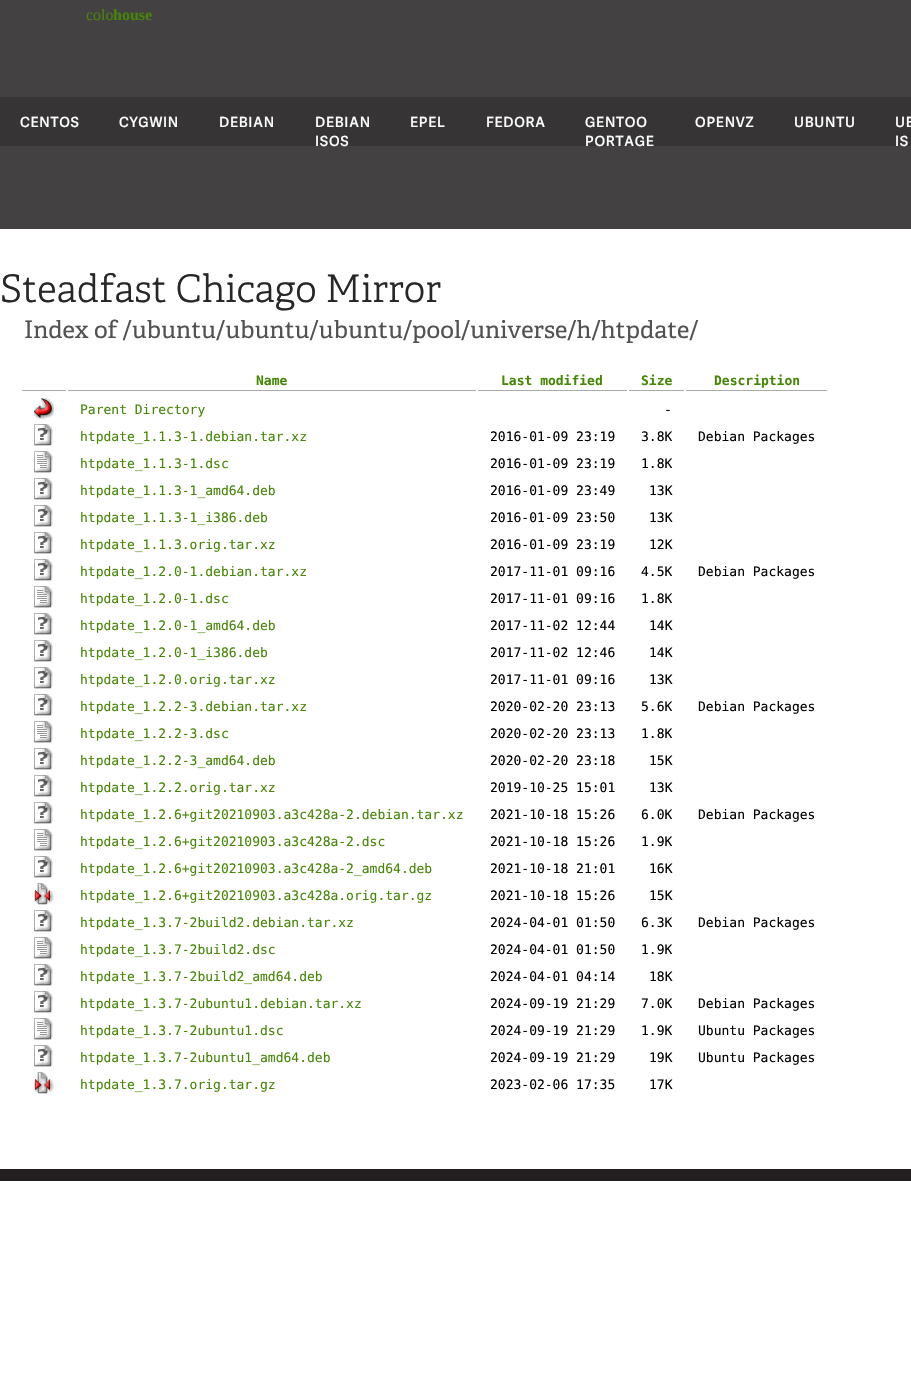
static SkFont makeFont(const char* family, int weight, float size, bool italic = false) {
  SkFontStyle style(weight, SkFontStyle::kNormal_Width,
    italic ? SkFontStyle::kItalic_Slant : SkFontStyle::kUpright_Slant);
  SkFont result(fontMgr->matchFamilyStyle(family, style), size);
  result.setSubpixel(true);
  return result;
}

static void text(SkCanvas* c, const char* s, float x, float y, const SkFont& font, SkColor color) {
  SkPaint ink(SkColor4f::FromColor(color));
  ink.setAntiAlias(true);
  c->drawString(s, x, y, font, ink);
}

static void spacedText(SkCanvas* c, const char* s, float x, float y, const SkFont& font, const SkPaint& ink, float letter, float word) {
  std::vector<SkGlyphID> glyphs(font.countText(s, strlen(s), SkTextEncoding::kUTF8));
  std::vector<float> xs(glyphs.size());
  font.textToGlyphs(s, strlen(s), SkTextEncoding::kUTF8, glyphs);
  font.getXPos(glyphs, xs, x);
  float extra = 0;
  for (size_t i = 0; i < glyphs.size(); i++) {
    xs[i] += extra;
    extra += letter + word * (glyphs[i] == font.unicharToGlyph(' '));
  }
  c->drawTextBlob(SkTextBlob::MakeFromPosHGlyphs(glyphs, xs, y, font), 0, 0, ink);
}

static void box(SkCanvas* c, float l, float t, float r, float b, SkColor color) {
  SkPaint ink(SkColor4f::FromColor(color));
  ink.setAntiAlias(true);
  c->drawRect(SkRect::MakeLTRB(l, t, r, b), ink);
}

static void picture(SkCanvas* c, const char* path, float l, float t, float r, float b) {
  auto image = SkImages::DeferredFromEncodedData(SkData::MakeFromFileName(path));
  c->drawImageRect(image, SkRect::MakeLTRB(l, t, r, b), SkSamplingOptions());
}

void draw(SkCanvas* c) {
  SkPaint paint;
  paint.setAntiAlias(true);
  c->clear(0xffffffff);
  box(c, 0, 0, 911, 229, 0xff444142);
  SkFont face1 = makeFont("Liberation Serif", 400, 16);
  text(c, "colo", 86, 20, face1, 0xff478609);
  SkFont face2 = makeFont("Liberation Serif", 700, 16);
  text(c, "house", 113, 20, face2, 0xff478609);
  box(c, 0, 97, 911, 146, 0xff363435);
  SkFont face3 = makeFont("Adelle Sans", 600, 14);
  paint.setColor(0xffffffff);
  spacedText(c, "CENTOS", 20, 127, face3, paint, 0.75f, 0);
  spacedText(c, "CYGWIN", 119, 127, face3, paint, 0.75f, 0);
  spacedText(c, "DEBIAN", 219, 127, face3, paint, 0.75f, 0);
  spacedText(c, "DEBIAN", 315, 127, face3, paint, 0.75f, 0);
  spacedText(c, "ISOS", 315, 146, face3, paint, 0.75f, 0);
  spacedText(c, "EPEL", 410, 127, face3, paint, 0.75f, 0);
  spacedText(c, "FEDORA", 486, 127, face3, paint, 0.75f, 0);
  spacedText(c, "GENTOO", 585, 127, face3, paint, 0.75f, 0);
  spacedText(c, "PORTAGE", 585, 146, face3, paint, 0.75f, 0);
  spacedText(c, "OPENVZ", 695, 127, face3, paint, 0.75f, 0);
  spacedText(c, "UBUNTU", 794, 127, face3, paint, 0.75f, 0);
  spacedText(c, "UB", 895, 127, face3, paint, 0.75f, 0);
  spacedText(c, "IS", 895, 146, face3, paint, 0.75f, 0);
  SkFont face4 = makeFont("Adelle", 300, 38);
  text(c, "Steadfast Chicago Mirror", 0, 302, face4, 0xff272727);
  SkFont face5 = makeFont("Adelle", 400, 24);
  text(c, "Index of /ubuntu/ubuntu/ubuntu/pool/universe/h/htpdate/", 24, 338, face5, 0xff525252);
  box(c, 68, 390, 476, 391, 0xffaaaaaa);
  SkFont face6 = makeFont("DejaVu Sans Mono", 700, 13);
  text(c, "Name", 256, 385, face6, 0xff478609);
  box(c, 478, 390, 627, 391, 0xffaaaaaa);
  text(c, "Last modified", 501, 385, face6, 0xff478609);
  box(c, 629, 390, 684, 391, 0xffaaaaaa);
  text(c, "Size", 641, 385, face6, 0xff478609);
  box(c, 686, 390, 827, 391, 0xffaaaaaa);
  text(c, "Description", 714, 385, face6, 0xff478609);
  box(c, 22, 390, 66, 391, 0xffaaaaaa);
  picture(c, "img_01.png", 34, 398, 54, 419);
  SkFont face7 = makeFont("DejaVu Sans Mono", 400, 13);
  text(c, "Parent Directory", 80, 414, face7, 0xff478609);
  text(c, "-", 664, 414, face7, 0xff000000);
  picture(c, "img_02.png", 34, 424, 53, 446);
  text(c, "htpdate_1.1.3-1.debian.tar.xz", 80, 441, face7, 0xff478609);
  text(c, "2016-01-09 23:19", 490, 441, face7, 0xff000000);
  text(c, "3.8K", 641, 441, face7, 0xff000000);
  text(c, "Debian Packages", 698, 441, face7, 0xff000000);
  picture(c, "img_03.png", 34, 451, 53, 473);
  text(c, "htpdate_1.1.3-1.dsc", 80, 468, face7, 0xff478609);
  text(c, "2016-01-09 23:19", 490, 468, face7, 0xff000000);
  text(c, "1.8K", 641, 468, face7, 0xff000000);
  picture(c, "img_02.png", 34, 478, 53, 500);
  text(c, "htpdate_1.1.3-1_amd64.deb", 80, 495, face7, 0xff478609);
  text(c, "2016-01-09 23:49", 490, 495, face7, 0xff000000);
  text(c, "13K", 649, 495, face7, 0xff000000);
  picture(c, "img_02.png", 34, 505, 53, 527);
  text(c, "htpdate_1.1.3-1_i386.deb", 80, 522, face7, 0xff478609);
  text(c, "2016-01-09 23:50", 490, 522, face7, 0xff000000);
  text(c, "13K", 649, 522, face7, 0xff000000);
  picture(c, "img_02.png", 34, 532, 53, 554);
  text(c, "htpdate_1.1.3.orig.tar.xz", 80, 549, face7, 0xff478609);
  text(c, "2016-01-09 23:19", 490, 549, face7, 0xff000000);
  text(c, "12K", 649, 549, face7, 0xff000000);
  picture(c, "img_02.png", 34, 559, 53, 581);
  text(c, "htpdate_1.2.0-1.debian.tar.xz", 80, 576, face7, 0xff478609);
  text(c, "2017-11-01 09:16", 490, 576, face7, 0xff000000);
  text(c, "4.5K", 641, 576, face7, 0xff000000);
  text(c, "Debian Packages", 698, 576, face7, 0xff000000);
  picture(c, "img_03.png", 34, 586, 53, 608);
  text(c, "htpdate_1.2.0-1.dsc", 80, 603, face7, 0xff478609);
  text(c, "2017-11-01 09:16", 490, 603, face7, 0xff000000);
  text(c, "1.8K", 641, 603, face7, 0xff000000);
  picture(c, "img_02.png", 34, 613, 53, 635);
  text(c, "htpdate_1.2.0-1_amd64.deb", 80, 630, face7, 0xff478609);
  text(c, "2017-11-02 12:44", 490, 630, face7, 0xff000000);
  text(c, "14K", 649, 630, face7, 0xff000000);
  picture(c, "img_02.png", 34, 640, 53, 662);
  text(c, "htpdate_1.2.0-1_i386.deb", 80, 657, face7, 0xff478609);
  text(c, "2017-11-02 12:46", 490, 657, face7, 0xff000000);
  text(c, "14K", 649, 657, face7, 0xff000000);
  picture(c, "img_02.png", 34, 667, 53, 689);
  text(c, "htpdate_1.2.0.orig.tar.xz", 80, 684, face7, 0xff478609);
  text(c, "2017-11-01 09:16", 490, 684, face7, 0xff000000);
  text(c, "13K", 649, 684, face7, 0xff000000);
  picture(c, "img_02.png", 34, 694, 53, 716);
  text(c, "htpdate_1.2.2-3.debian.tar.xz", 80, 711, face7, 0xff478609);
  text(c, "2020-02-20 23:13", 490, 711, face7, 0xff000000);
  text(c, "5.6K", 641, 711, face7, 0xff000000);
  text(c, "Debian Packages", 698, 711, face7, 0xff000000);
  picture(c, "img_03.png", 34, 721, 53, 743);
  text(c, "htpdate_1.2.2-3.dsc", 80, 738, face7, 0xff478609);
  text(c, "2020-02-20 23:13", 490, 738, face7, 0xff000000);
  text(c, "1.8K", 641, 738, face7, 0xff000000);
  picture(c, "img_02.png", 34, 748, 53, 770);
  text(c, "htpdate_1.2.2-3_amd64.deb", 80, 765, face7, 0xff478609);
  text(c, "2020-02-20 23:18", 490, 765, face7, 0xff000000);
  text(c, "15K", 649, 765, face7, 0xff000000);
  picture(c, "img_02.png", 34, 775, 53, 797);
  text(c, "htpdate_1.2.2.orig.tar.xz", 80, 792, face7, 0xff478609);
  text(c, "2019-10-25 15:01", 490, 792, face7, 0xff000000);
  text(c, "13K", 649, 792, face7, 0xff000000);
  picture(c, "img_02.png", 34, 802, 53, 824);
  text(c, "htpdate_1.2.6+git20210903.a3c428a-2.debian.tar.xz", 80, 819, face7, 0xff478609);
  text(c, "2021-10-18 15:26", 490, 819, face7, 0xff000000);
  text(c, "6.0K", 641, 819, face7, 0xff000000);
  text(c, "Debian Packages", 698, 819, face7, 0xff000000);
  picture(c, "img_03.png", 34, 829, 53, 851);
  text(c, "htpdate_1.2.6+git20210903.a3c428a-2.dsc", 80, 846, face7, 0xff478609);
  text(c, "2021-10-18 15:26", 490, 846, face7, 0xff000000);
  text(c, "1.9K", 641, 846, face7, 0xff000000);
  picture(c, "img_02.png", 34, 856, 53, 878);
  text(c, "htpdate_1.2.6+git20210903.a3c428a-2_amd64.deb", 80, 873, face7, 0xff478609);
  text(c, "2021-10-18 21:01", 490, 873, face7, 0xff000000);
  text(c, "16K", 649, 873, face7, 0xff000000);
  picture(c, "img_04.png", 34, 883, 54, 905);
  text(c, "htpdate_1.2.6+git20210903.a3c428a.orig.tar.gz", 80, 900, face7, 0xff478609);
  text(c, "2021-10-18 15:26", 490, 900, face7, 0xff000000);
  text(c, "15K", 649, 900, face7, 0xff000000);
  picture(c, "img_02.png", 34, 910, 53, 932);
  text(c, "htpdate_1.3.7-2build2.debian.tar.xz", 80, 927, face7, 0xff478609);
  text(c, "2024-04-01 01:50", 490, 927, face7, 0xff000000);
  text(c, "6.3K", 641, 927, face7, 0xff000000);
  text(c, "Debian Packages", 698, 927, face7, 0xff000000);
  picture(c, "img_03.png", 34, 937, 53, 959);
  text(c, "htpdate_1.3.7-2build2.dsc", 80, 954, face7, 0xff478609);
  text(c, "2024-04-01 01:50", 490, 954, face7, 0xff000000);
  text(c, "1.9K", 641, 954, face7, 0xff000000);
  picture(c, "img_02.png", 34, 964, 53, 986);
  text(c, "htpdate_1.3.7-2build2_amd64.deb", 80, 981, face7, 0xff478609);
  text(c, "2024-04-01 04:14", 490, 981, face7, 0xff000000);
  text(c, "18K", 649, 981, face7, 0xff000000);
  picture(c, "img_02.png", 34, 991, 53, 1013);
  text(c, "htpdate_1.3.7-2ubuntu1.debian.tar.xz", 80, 1008, face7, 0xff478609);
  text(c, "2024-09-19 21:29", 490, 1008, face7, 0xff000000);
  text(c, "7.0K", 641, 1008, face7, 0xff000000);
  text(c, "Debian Packages", 698, 1008, face7, 0xff000000);
  picture(c, "img_03.png", 34, 1018, 53, 1040);
  text(c, "htpdate_1.3.7-2ubuntu1.dsc", 80, 1035, face7, 0xff478609);
  text(c, "2024-09-19 21:29", 490, 1035, face7, 0xff000000);
  text(c, "1.9K", 641, 1035, face7, 0xff000000);
  text(c, "Ubuntu Packages", 698, 1035, face7, 0xff000000);
  picture(c, "img_02.png", 34, 1045, 53, 1067);
  text(c, "htpdate_1.3.7-2ubuntu1_amd64.deb", 80, 1062, face7, 0xff478609);
  text(c, "2024-09-19 21:29", 490, 1062, face7, 0xff000000);
  text(c, "19K", 649, 1062, face7, 0xff000000);
  text(c, "Ubuntu Packages", 698, 1062, face7, 0xff000000);
  picture(c, "img_04.png", 34, 1072, 54, 1094);
  text(c, "htpdate_1.3.7.orig.tar.gz", 80, 1089, face7, 0xff478609);
  text(c, "2023-02-06 17:35", 490, 1089, face7, 0xff000000);
  text(c, "17K", 649, 1089, face7, 0xff000000);
  box(c, 0, 1169, 911, 1181, 0xff231f20);
}
